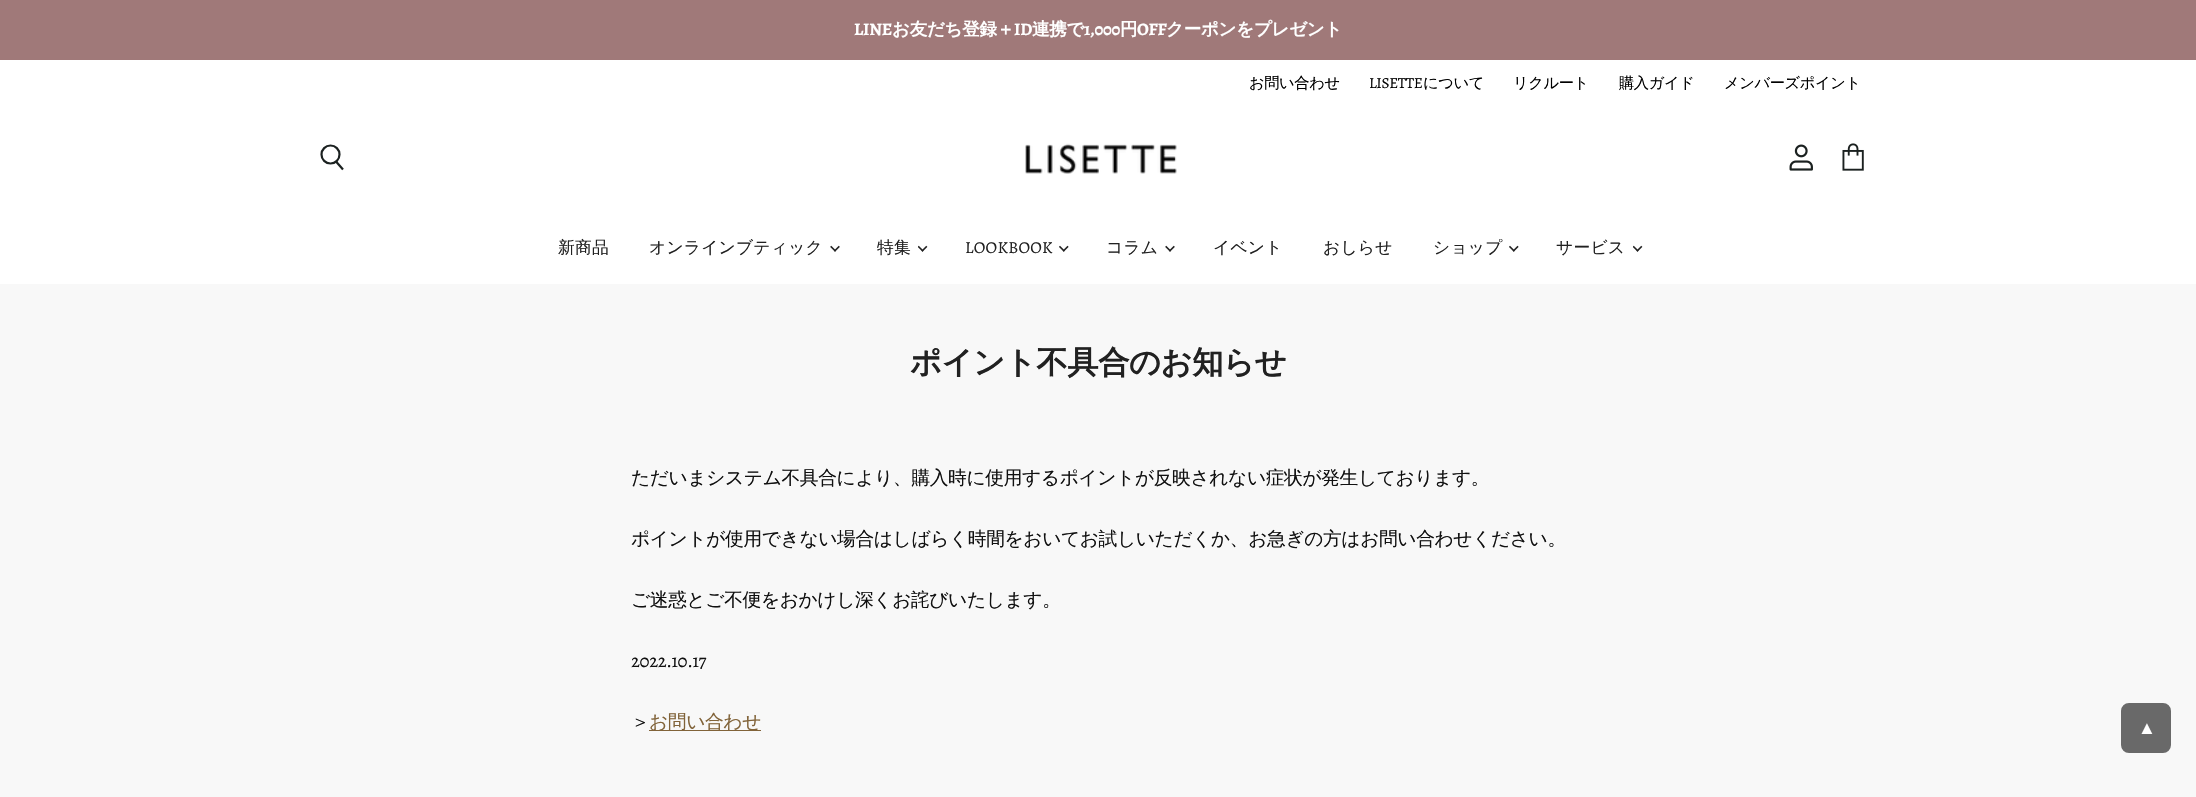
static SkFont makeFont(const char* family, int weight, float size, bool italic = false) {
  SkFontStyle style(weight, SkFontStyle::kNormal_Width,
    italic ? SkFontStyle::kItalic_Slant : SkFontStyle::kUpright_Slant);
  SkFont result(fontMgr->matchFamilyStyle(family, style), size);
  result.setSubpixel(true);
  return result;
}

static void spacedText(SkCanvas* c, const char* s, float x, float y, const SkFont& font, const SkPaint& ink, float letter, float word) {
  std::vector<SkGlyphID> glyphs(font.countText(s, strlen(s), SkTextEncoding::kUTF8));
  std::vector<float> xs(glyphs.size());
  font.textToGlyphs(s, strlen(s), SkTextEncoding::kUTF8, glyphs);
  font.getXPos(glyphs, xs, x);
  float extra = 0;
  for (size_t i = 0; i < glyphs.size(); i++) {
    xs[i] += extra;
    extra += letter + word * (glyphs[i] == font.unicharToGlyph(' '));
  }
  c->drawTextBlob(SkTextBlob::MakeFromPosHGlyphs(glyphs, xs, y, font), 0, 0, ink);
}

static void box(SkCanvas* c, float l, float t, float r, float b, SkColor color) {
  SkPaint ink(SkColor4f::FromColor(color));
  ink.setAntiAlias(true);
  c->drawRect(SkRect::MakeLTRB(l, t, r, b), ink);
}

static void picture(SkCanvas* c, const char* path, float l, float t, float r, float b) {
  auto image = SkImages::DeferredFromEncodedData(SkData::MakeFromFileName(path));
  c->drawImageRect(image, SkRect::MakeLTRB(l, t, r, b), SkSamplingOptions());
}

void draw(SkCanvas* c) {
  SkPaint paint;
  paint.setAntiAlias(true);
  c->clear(0xfff8f8f8);
  box(c, 0, 0, 2196, 60, 0xffa07979);
  SkFont face1 = makeFont("Alegreya", 700, 17.5f);
  paint.setColor(0xffffffff);
  spacedText(c, "LINE", 854, 35, face1, paint, -0.25f, 0);
  SkFont face2 = makeFont("WenQuanYi Zen Hei", 700, 17.5f);
  spacedText(c, "お友だち登録＋", 892, 35, face2, paint, -0.25f, 0);
  spacedText(c, "ID", 1014, 35, face1, paint, -0.25f, 0);
  spacedText(c, "連携で", 1032, 35, face2, paint, -0.25f, 0);
  spacedText(c, "1,000", 1084, 35, face1, paint, -0.25f, 0);
  spacedText(c, "円", 1120, 35, face2, paint, -0.25f, 0);
  spacedText(c, "OFF", 1137, 35, face1, paint, -0.25f, 0);
  spacedText(c, "クーポンをプレゼント", 1166, 35, face2, paint, -0.25f, 0);
  box(c, 0, 60, 2196, 284, 0xffffffff);
  SkFont face3 = makeFont("WenQuanYi Zen Hei", 500, 15.25f);
  paint.setColor(0xff000000);
  spacedText(c, "お問い合わせ", 1249, 88, face3, paint, -0.38f, 0);
  SkFont face4 = makeFont("Alegreya", 400, 15.25f);
  spacedText(c, "LISETTE", 1369, 88, face4, paint, -0.38f, 0);
  spacedText(c, "について", 1423, 88, face3, paint, -0.38f, 0);
  spacedText(c, "リクルート", 1513, 88, face3, paint, -0.38f, 0);
  spacedText(c, "購入ガイド", 1619, 88, face3, paint, -0.38f, 0);
  spacedText(c, "メンバーズポイント", 1724, 88, face3, paint, -0.38f, 0);
  paint.setStyle(SkPaint::kStroke_Style);
  paint.setStrokeWidth(2.2f);
  paint.setColor(0xff1b2120);
  c->drawPath(SkPathBuilder().moveTo(343, 169.5f).lineTo(336, 161.5f).detach(), paint);
  c->drawCircle(330.5f, 154.5f, 9, paint);
  picture(c, "img_01.png", 1789, 144, 1813, 171);
  picture(c, "img_02.png", 1842, 143, 1864, 171);
  picture(c, "img_03.png", 1025, 143, 1177, 174);
  SkFont face5 = makeFont("WenQuanYi Zen Hei", 500, 16.75f);
  paint.setStyle(SkPaint::kFill_Style);
  paint.setColor(0xff212121);
  spacedText(c, "新商品", 558, 253, face5, paint, 0.25f, 0);
  spacedText(c, "オンラインブティック", 649, 253, face5, paint, 0.25f, 0);
  picture(c, "img_04.png", 830, 245, 840, 252);
  spacedText(c, "特集", 877, 253, face5, paint, 0.25f, 0);
  picture(c, "img_05.png", 918, 245, 928, 252);
  SkFont face6 = makeFont("Alegreya", 400, 16.75f);
  spacedText(c, "LOOKBOOK", 965, 253, face6, paint, 0.25f, 0);
  picture(c, "img_06.png", 1059, 245, 1069, 252);
  spacedText(c, "コラム", 1106, 253, face5, paint, 0.25f, 0);
  picture(c, "img_04.png", 1165, 245, 1175, 252);
  spacedText(c, "イベント", 1213, 253, face5, paint, 0.25f, 0);
  spacedText(c, "おしらせ", 1323, 253, face5, paint, 0.25f, 0);
  spacedText(c, "ショップ", 1433, 253, face5, paint, 0.25f, 0);
  picture(c, "img_06.png", 1509, 245, 1519, 252);
  spacedText(c, "サービス", 1556, 253, face5, paint, 0.25f, 0);
  picture(c, "img_05.png", 1633, 245, 1643, 252);
  SkFont face7 = makeFont("WenQuanYi Zen Hei", 700, 31.25f);
  spacedText(c, "ポイント不具合のお知らせ", 910, 373, face7, paint, -0.38f, 0);
  SkFont face8 = makeFont("WenQuanYi Zen Hei", 500, 18.75f);
  paint.setColor(0xff111111);
  spacedText(c, "ただいまシステム不具合により、購入時に使用するポイントが反映されない症状が発生しております。", 631, 484, face8, paint, -0.38f, 0);
  spacedText(c, "ポイントが使用できない場合はしばらく時間をおいてお試しいただくか、お急ぎの方はお問い合わせください。", 631, 545, face8, paint, -0.38f, 0);
  spacedText(c, "ご迷惑とご不便をおかけし深くお詫びいたします。", 631, 606, face8, paint, -0.38f, 0);
  SkFont face9 = makeFont("Alegreya", 400, 18.75f);
  spacedText(c, "2022.10.17", 631, 667, face9, paint, -0.38f, 0);
  spacedText(c, "＞", 631, 728, face8, paint, -0.38f, 0);
  box(c, 649, 730, 761, 731, 0xff816339);
  paint.setColor(0xff816339);
  spacedText(c, "お問い合わせ", 649, 728, face8, paint, -0.38f, 0);
  paint.setColor(0xff696969);
  c->drawRoundRect(SkRect::MakeLTRB(2122.5f, 704.5f, 2169.5f, 751.5f), 6.5f, 6.5f, paint);
  paint.setStyle(SkPaint::kStroke_Style);
  paint.setStrokeWidth(3);
  c->drawRoundRect(SkRect::MakeLTRB(2122.5f, 704.5f, 2169.5f, 751.5f), 6.5f, 6.5f, paint);
  SkFont face10 = makeFont("Liberation Serif", 700, 18);
  paint.setStyle(SkPaint::kFill_Style);
  paint.setColor(0xffffffff);
  spacedText(c, "▲", 2138, 734, face10, paint, -0.38f, 0);
}
